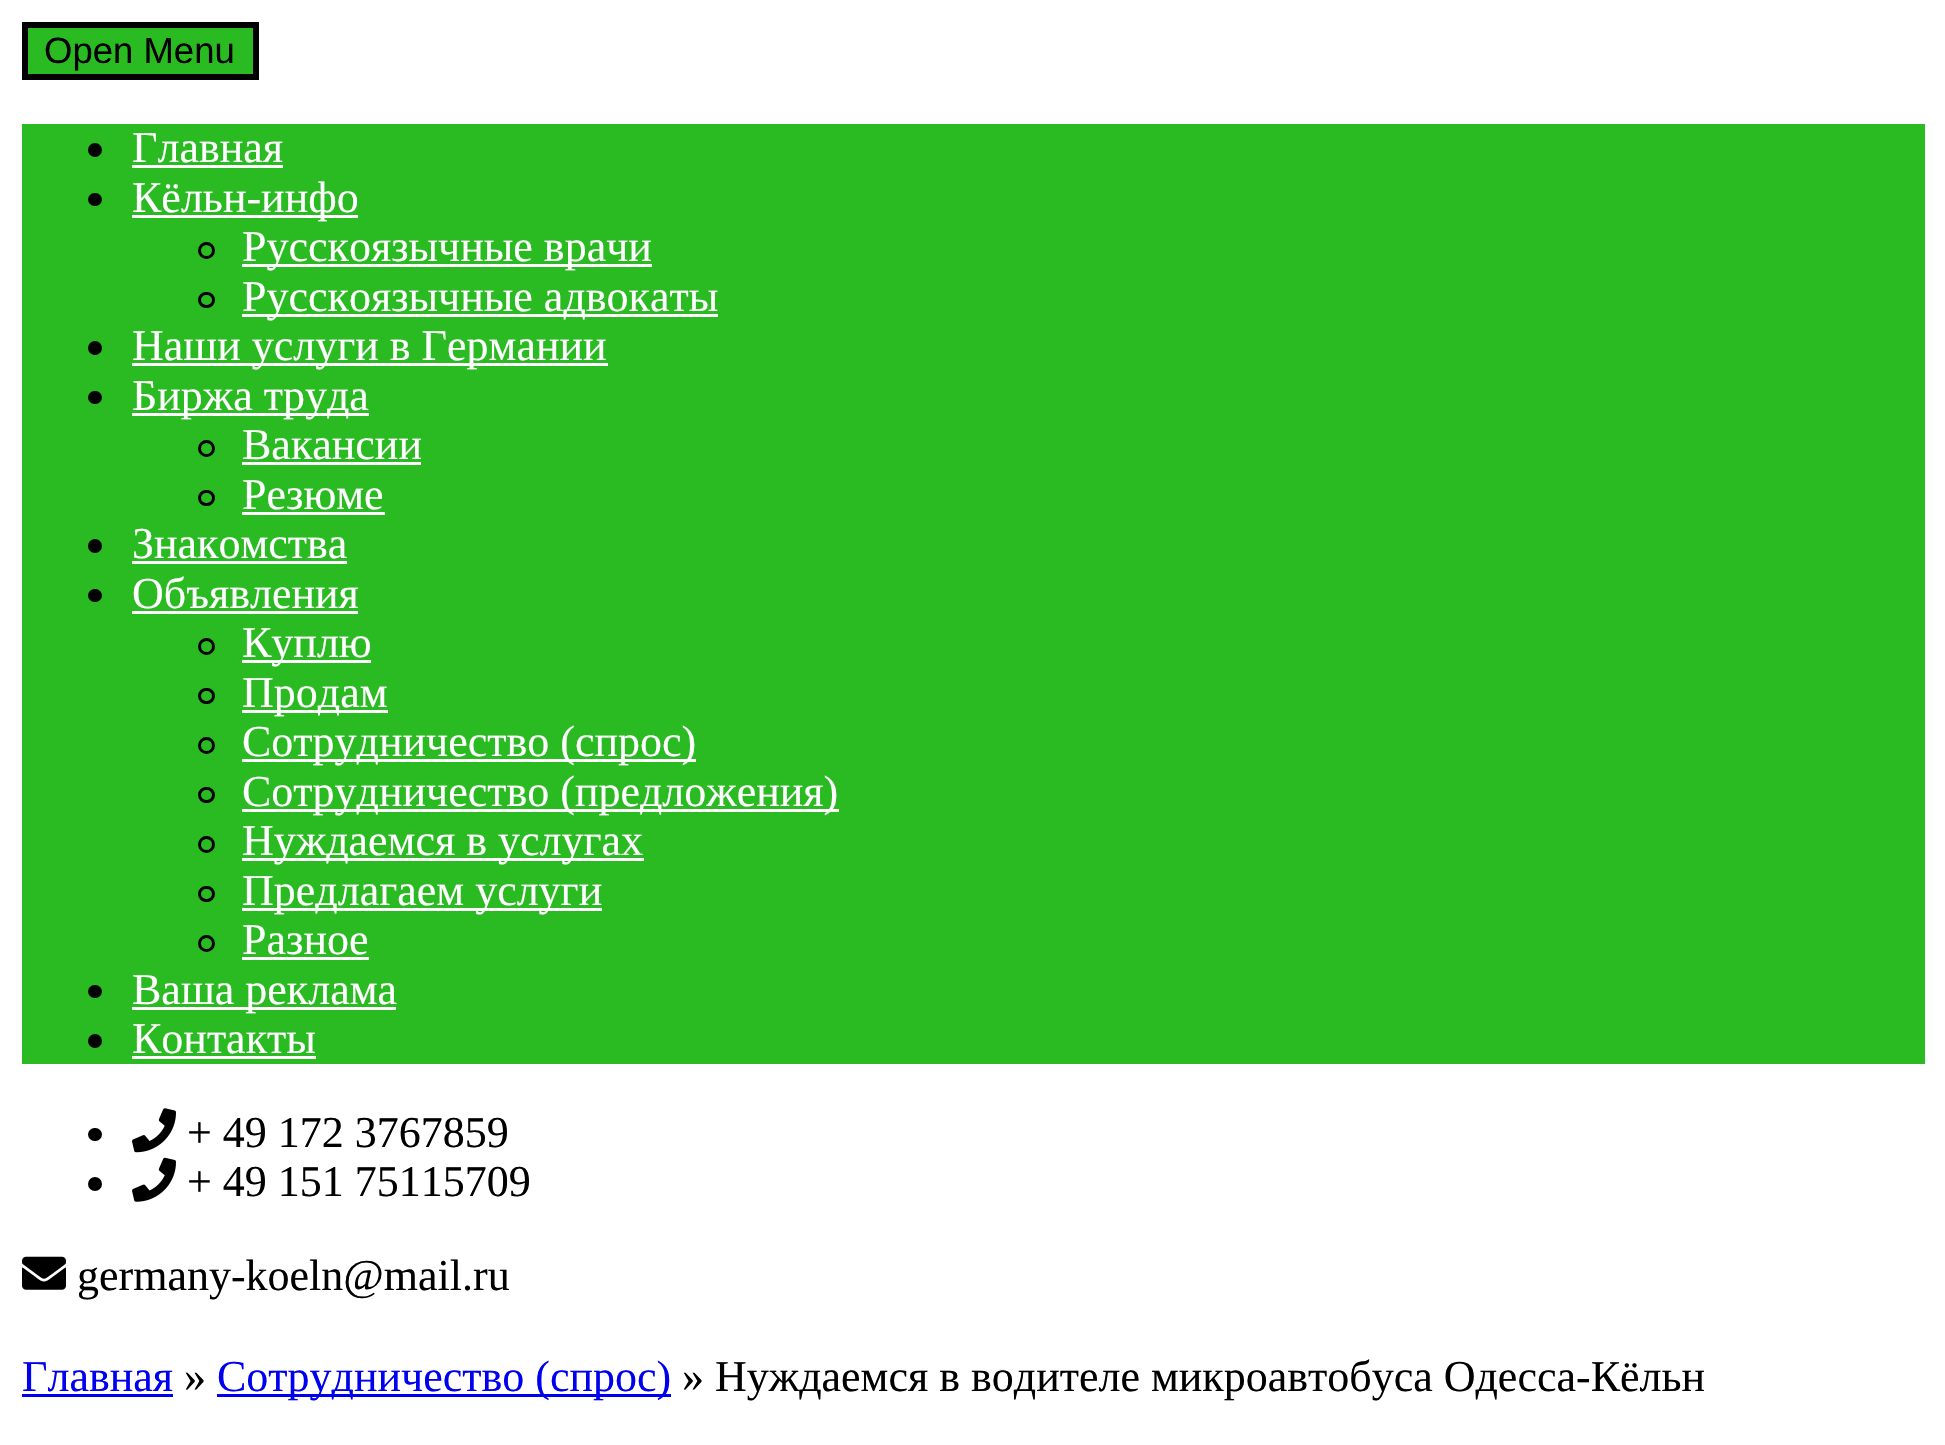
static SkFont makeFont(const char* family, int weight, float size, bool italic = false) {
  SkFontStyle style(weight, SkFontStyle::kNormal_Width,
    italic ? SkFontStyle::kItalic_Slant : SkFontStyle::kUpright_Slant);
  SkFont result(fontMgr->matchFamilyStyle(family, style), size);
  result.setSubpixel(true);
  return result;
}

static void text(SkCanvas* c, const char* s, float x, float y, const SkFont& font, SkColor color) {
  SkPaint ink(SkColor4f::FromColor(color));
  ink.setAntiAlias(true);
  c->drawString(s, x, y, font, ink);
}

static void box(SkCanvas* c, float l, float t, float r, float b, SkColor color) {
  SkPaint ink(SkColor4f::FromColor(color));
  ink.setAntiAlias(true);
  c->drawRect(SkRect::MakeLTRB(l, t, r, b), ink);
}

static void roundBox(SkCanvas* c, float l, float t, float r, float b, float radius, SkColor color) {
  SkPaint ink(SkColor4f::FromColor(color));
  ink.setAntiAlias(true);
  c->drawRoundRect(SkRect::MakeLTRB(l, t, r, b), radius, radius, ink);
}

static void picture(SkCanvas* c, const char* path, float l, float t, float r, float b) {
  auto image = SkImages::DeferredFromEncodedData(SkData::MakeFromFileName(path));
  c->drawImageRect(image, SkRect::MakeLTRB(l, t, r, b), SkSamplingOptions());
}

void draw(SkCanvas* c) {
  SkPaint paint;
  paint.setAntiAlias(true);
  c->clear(0xffffffff);
  paint.setColor(0xff2aba22);
  c->drawRect(SkRect::MakeLTRB(25, 25, 256, 77), paint);
  paint.setStyle(SkPaint::kStroke_Style);
  paint.setStrokeWidth(6);
  paint.setColor(0xff000000);
  c->drawRect(SkRect::MakeLTRB(25, 25, 256, 77), paint);
  SkFont face1 = makeFont("Liberation Sans", 400, 36.5f);
  text(c, "Open Menu", 44, 63, face1, 0xff000000);
  box(c, 22, 124, 1925, 1064, 0xff2aba22);
  paint.setStyle(SkPaint::kFill_Style);
  c->drawCircle(95, 150, 7, paint);
  SkFont face2 = makeFont("Liberation Serif", 400, 44);
  text(c, "Главная", 132, 162, face2, 0xffffffff);
  box(c, 132, 165, 283, 168, 0xffffffff);
  roundBox(c, 88, 193, 102, 206, 6.5f, 0xff000000);
  box(c, 132, 215, 358, 218, 0xffffffff);
  text(c, "Кёльн-инфо", 132, 212, face2, 0xffffffff);
  paint.setStyle(SkPaint::kStroke_Style);
  paint.setStrokeWidth(3);
  c->drawCircle(206.5f, 250.5f, 7, paint);
  box(c, 242, 264, 652, 267, 0xffffffff);
  text(c, "Русскоязычные врачи", 242, 261, face2, 0xffffffff);
  c->drawRoundRect(SkRect::MakeLTRB(199.5f, 293.5f, 213.5f, 306.5f), 6.5f, 6.5f, paint);
  box(c, 242, 314, 718, 317, 0xffffffff);
  text(c, "Русскоязычные адвокаты", 242, 311, face2, 0xffffffff);
  paint.setStyle(SkPaint::kFill_Style);
  c->drawCircle(95, 348, 7, paint);
  box(c, 132, 363, 608, 366, 0xffffffff);
  text(c, "Наши услуги в Германии", 132, 360, face2, 0xffffffff);
  roundBox(c, 88, 391, 102, 404, 6.5f, 0xff000000);
  box(c, 132, 413, 369, 416, 0xffffffff);
  text(c, "Биржа труда", 132, 410, face2, 0xffffffff);
  paint.setStyle(SkPaint::kStroke_Style);
  c->drawCircle(206.5f, 448.5f, 7, paint);
  text(c, "Вакансии", 242, 459, face2, 0xffffffff);
  box(c, 242, 462, 421, 465, 0xffffffff);
  c->drawRoundRect(SkRect::MakeLTRB(199.5f, 491.5f, 213.5f, 504.5f), 6.5f, 6.5f, paint);
  text(c, "Резюме", 242, 509, face2, 0xffffffff);
  box(c, 242, 512, 385, 515, 0xffffffff);
  paint.setStyle(SkPaint::kFill_Style);
  c->drawCircle(95, 546, 7, paint);
  text(c, "Знакомства", 132, 558, face2, 0xffffffff);
  box(c, 132, 561, 347, 564, 0xffffffff);
  roundBox(c, 88, 589, 102, 602, 6.5f, 0xff000000);
  text(c, "Объявления", 132, 608, face2, 0xffffffff);
  box(c, 132, 611, 358, 614, 0xffffffff);
  paint.setStyle(SkPaint::kStroke_Style);
  c->drawCircle(206.5f, 646.5f, 7, paint);
  box(c, 242, 660, 371, 663, 0xffffffff);
  text(c, "Куплю", 242, 657, face2, 0xffffffff);
  c->drawRoundRect(SkRect::MakeLTRB(199.5f, 689.5f, 213.5f, 702.5f), 6.5f, 6.5f, paint);
  box(c, 242, 710, 388, 713, 0xffffffff);
  text(c, "Продам", 242, 707, face2, 0xffffffff);
  c->drawCircle(206.5f, 745.5f, 7, paint);
  box(c, 242, 759, 696, 762, 0xffffffff);
  text(c, "Сотрудничество (спрос)", 242, 756, face2, 0xffffffff);
  c->drawRoundRect(SkRect::MakeLTRB(199.5f, 788.5f, 213.5f, 801.5f), 6.5f, 6.5f, paint);
  box(c, 242, 809, 839, 812, 0xffffffff);
  text(c, "Сотрудничество (предложения)", 242, 806, face2, 0xffffffff);
  c->drawCircle(206.5f, 844.5f, 7, paint);
  box(c, 242, 858, 644, 861, 0xffffffff);
  text(c, "Нуждаемся в услугах", 242, 855, face2, 0xffffffff);
  c->drawRoundRect(SkRect::MakeLTRB(199.5f, 887.5f, 213.5f, 900.5f), 6.5f, 6.5f, paint);
  box(c, 242, 908, 602, 911, 0xffffffff);
  text(c, "Предлагаем услуги", 242, 905, face2, 0xffffffff);
  c->drawCircle(206.5f, 943.5f, 7, paint);
  text(c, "Разное", 242, 954, face2, 0xffffffff);
  box(c, 242, 957, 369, 960, 0xffffffff);
  roundBox(c, 88, 985, 102, 998, 6.5f, 0xff000000);
  box(c, 132, 1007, 396, 1010, 0xffffffff);
  text(c, "Ваша реклама", 132, 1004, face2, 0xffffffff);
  paint.setStyle(SkPaint::kFill_Style);
  c->drawCircle(95, 1041, 7, paint);
  text(c, "Контакты", 132, 1053, face2, 0xffffffff);
  box(c, 132, 1056, 316, 1059, 0xffffffff);
  roundBox(c, 88, 1128, 102, 1141, 6.5f, 0xff000000);
  picture(c, "img_01.png", 132, 1108, 176, 1153);
  text(c, "+ 49 172 3767859", 187, 1147, face2, 0xff000000);
  c->drawCircle(95, 1184, 7, paint);
  picture(c, "img_02.png", 132, 1157, 176, 1202);
  text(c, "+ 49 151 75115709", 187, 1196, face2, 0xff000000);
  picture(c, "img_03.png", 22, 1256, 66, 1290);
  text(c, "germany-koeln@mail.ru", 77, 1290, face2, 0xff000000);
  text(c, "Главная", 22, 1391, face2, 0xff0000ee);
  box(c, 22, 1394, 173, 1397, 0xff0000ee);
  text(c, "»", 184, 1391, face2, 0xff000000);
  box(c, 217, 1394, 671, 1397, 0xff0000ee);
  text(c, "Сотрудничество (спрос)", 217, 1391, face2, 0xff0000ee);
  text(c, "» Нуждаемся в водителе микроавтобуса Одесса-Кёльн", 682, 1391, face2, 0xff000000);
}
